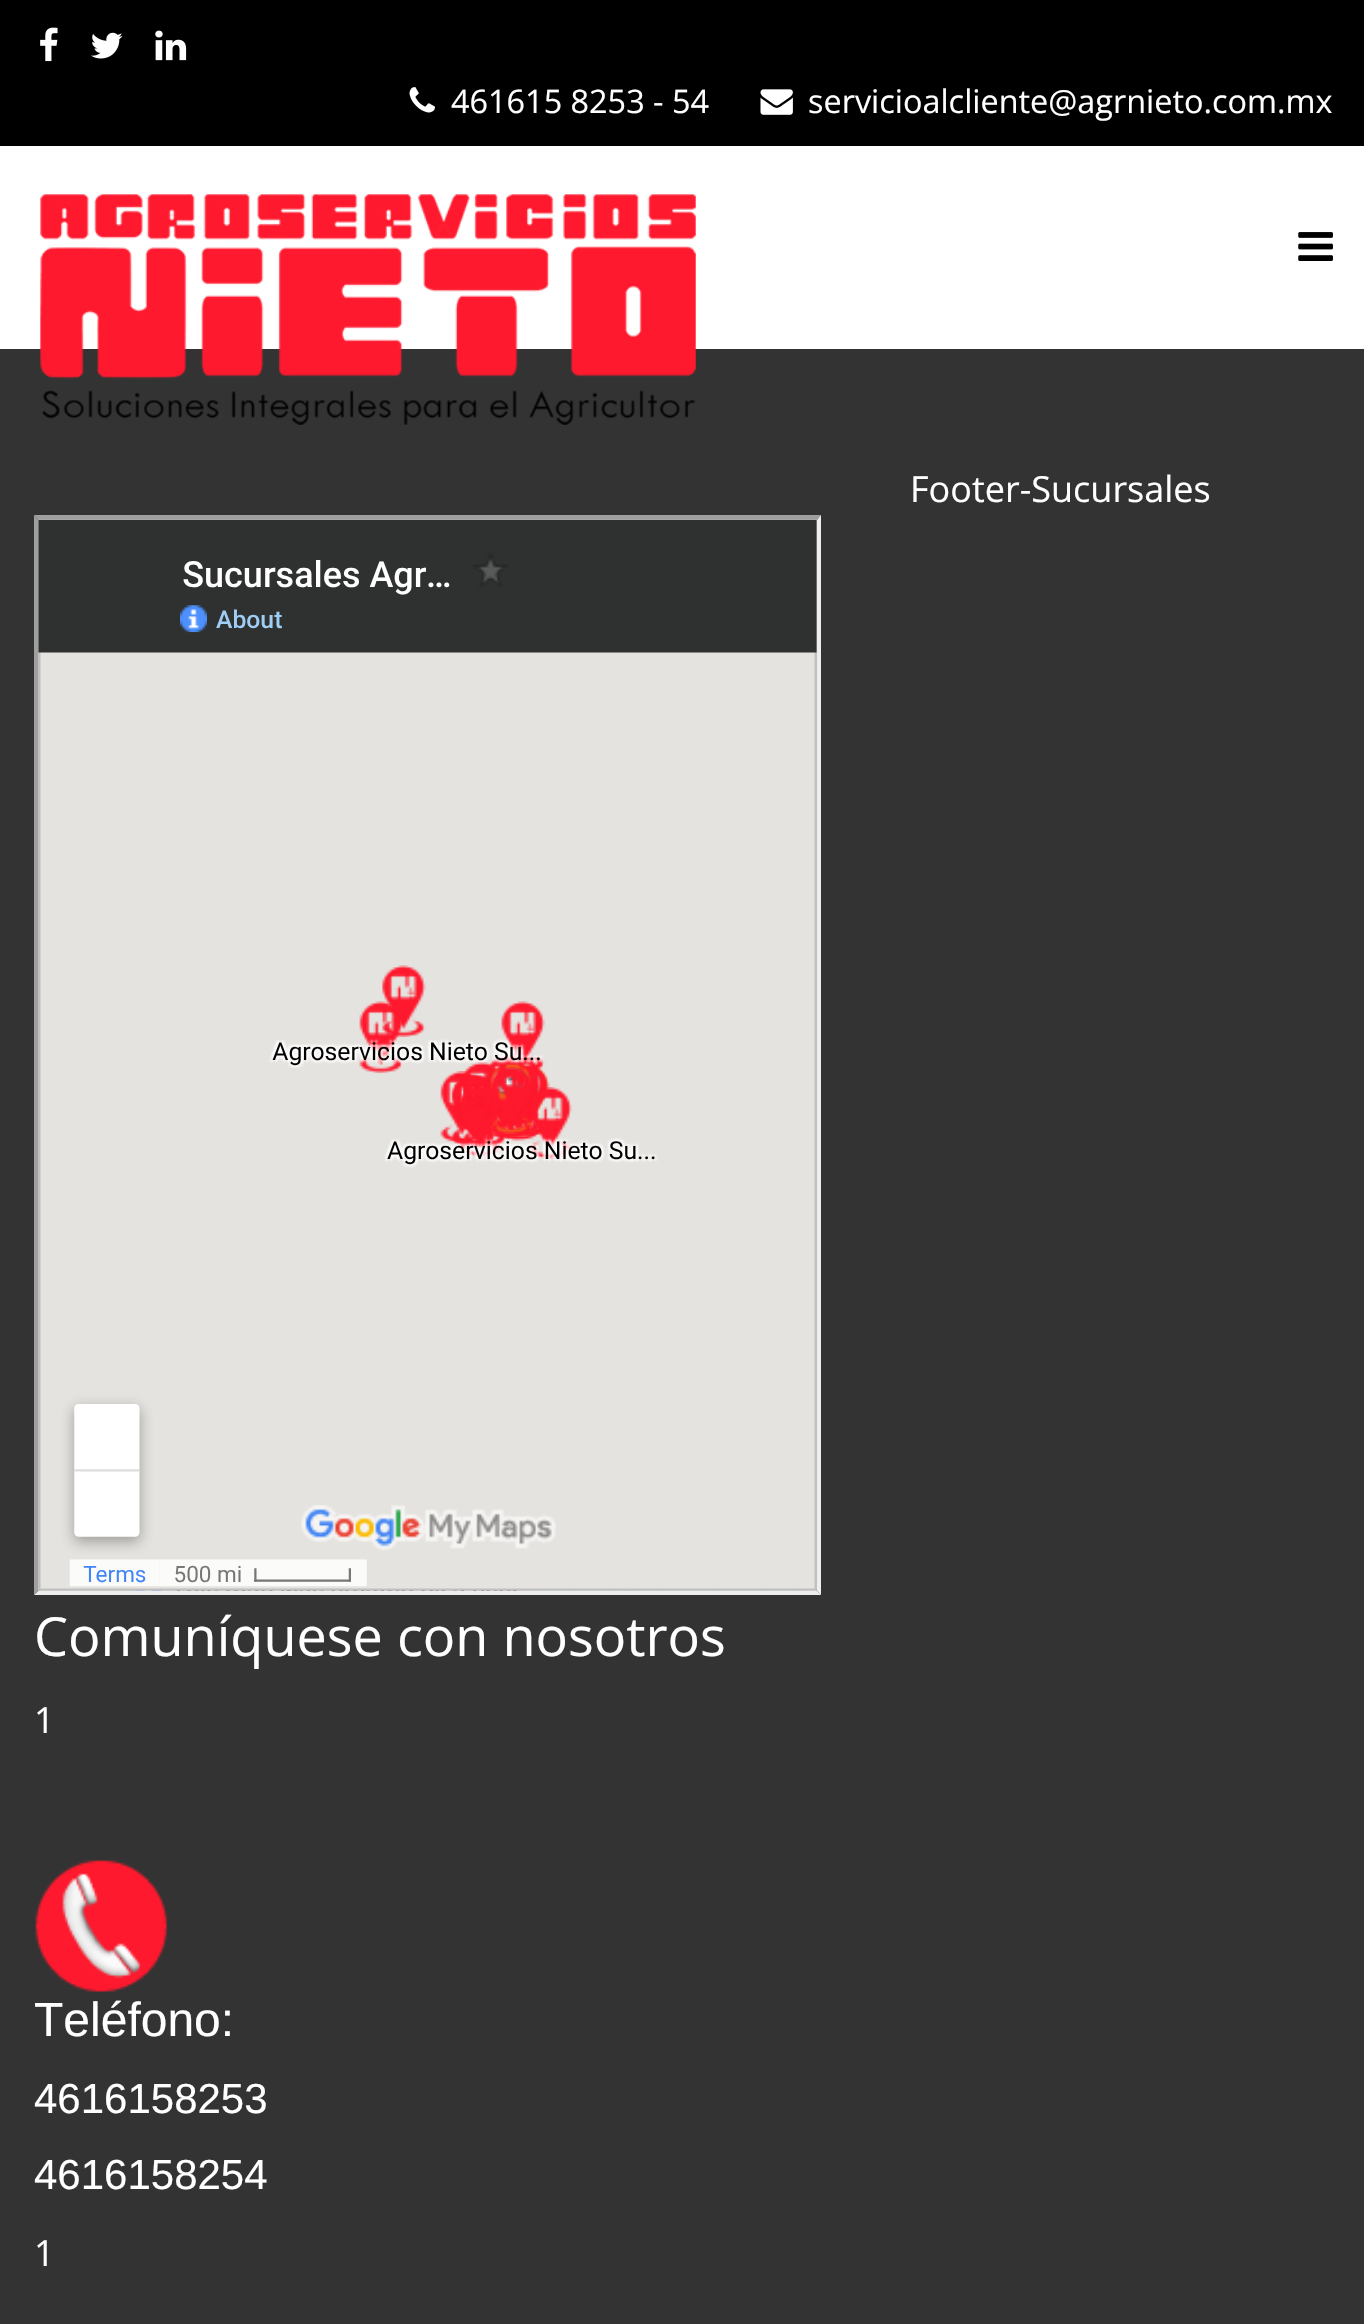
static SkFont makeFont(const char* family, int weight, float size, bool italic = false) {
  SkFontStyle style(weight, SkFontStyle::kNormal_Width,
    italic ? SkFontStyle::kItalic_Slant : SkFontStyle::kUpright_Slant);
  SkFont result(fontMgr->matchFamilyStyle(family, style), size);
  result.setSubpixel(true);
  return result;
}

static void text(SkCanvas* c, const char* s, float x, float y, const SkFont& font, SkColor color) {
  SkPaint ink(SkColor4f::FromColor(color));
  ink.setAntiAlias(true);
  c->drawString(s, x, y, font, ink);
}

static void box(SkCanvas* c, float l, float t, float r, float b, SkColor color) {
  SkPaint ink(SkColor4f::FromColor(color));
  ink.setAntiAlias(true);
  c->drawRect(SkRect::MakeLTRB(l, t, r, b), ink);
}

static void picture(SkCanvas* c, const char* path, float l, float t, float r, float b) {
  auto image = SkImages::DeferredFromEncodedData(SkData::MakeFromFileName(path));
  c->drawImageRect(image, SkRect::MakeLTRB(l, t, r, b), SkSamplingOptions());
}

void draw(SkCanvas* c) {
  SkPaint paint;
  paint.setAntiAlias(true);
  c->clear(0xff000000);
  picture(c, "img_01.png", 40, 27, 58, 62);
  picture(c, "img_02.png", 91, 32, 123, 59);
  picture(c, "img_03.png", 155, 30, 187, 61);
  picture(c, "img_04.png", 409, 87, 435, 113);
  SkFont face1 = makeFont("Open Sans", 400, 32.4f);
  text(c, "461615 8253 - 54", 451, 113, face1, 0xffffffff);
  picture(c, "img_05.png", 760, 89, 793, 115);
  text(c, "servicioalcliente@agrnieto.com.mx", 808, 113, face1, 0xffffffff);
  box(c, 0, 146, 1364, 349, 0xffffffff);
  box(c, 0, 349, 1364, 2324, 0xff333333);
  picture(c, "img_06.png", 40, 194, 696, 425);
  picture(c, "img_07.png", 1298, 232, 1333, 261);
  SkFont face2 = makeFont("Open Sans", 400, 36);
  text(c, "Footer-Sucursales", 910, 502, face2, 0xffffffff);
  paint.setColor(0xff9f9f9f);
  c->drawPath(SkPathBuilder().moveTo(34, 515).lineTo(821, 515).lineTo(817, 520).lineTo(38, 520).close().detach(), paint);
  paint.setColor(0xffeeeeee);
  c->drawPath(SkPathBuilder().moveTo(821, 515).lineTo(821, 1595).lineTo(817, 1591).lineTo(817, 520).close().detach(), paint);
  c->drawPath(SkPathBuilder().moveTo(821, 1595).lineTo(34, 1595).lineTo(38, 1591).lineTo(817, 1591).close().detach(), paint);
  paint.setColor(0xff9f9f9f);
  c->drawPath(SkPathBuilder().moveTo(34, 1595).lineTo(34, 515).lineTo(38, 520).lineTo(38, 1591).close().detach(), paint);
  picture(c, "img_08.png", 38, 519, 817, 1591);
  SkFont face3 = makeFont("Open Sans", 400, 54);
  text(c, "Comuníquese con nosotros", 34, 1656, face3, 0xffffffff);
  text(c, "1", 34, 1733, face2, 0xffffffff);
  picture(c, "img_09.png", 35, 1860, 168, 1992);
  SkFont face4 = makeFont("Liberation Sans", 400, 48);
  text(c, "Teléfono:", 34, 2036, face4, 0xffffffff);
  SkFont face5 = makeFont("Liberation Sans", 400, 42);
  text(c, "4616158253", 34, 2113, face5, 0xffffffff);
  text(c, "4616158254", 34, 2189, face5, 0xffffffff);
  text(c, "1", 34, 2266, face2, 0xffffffff);
}
